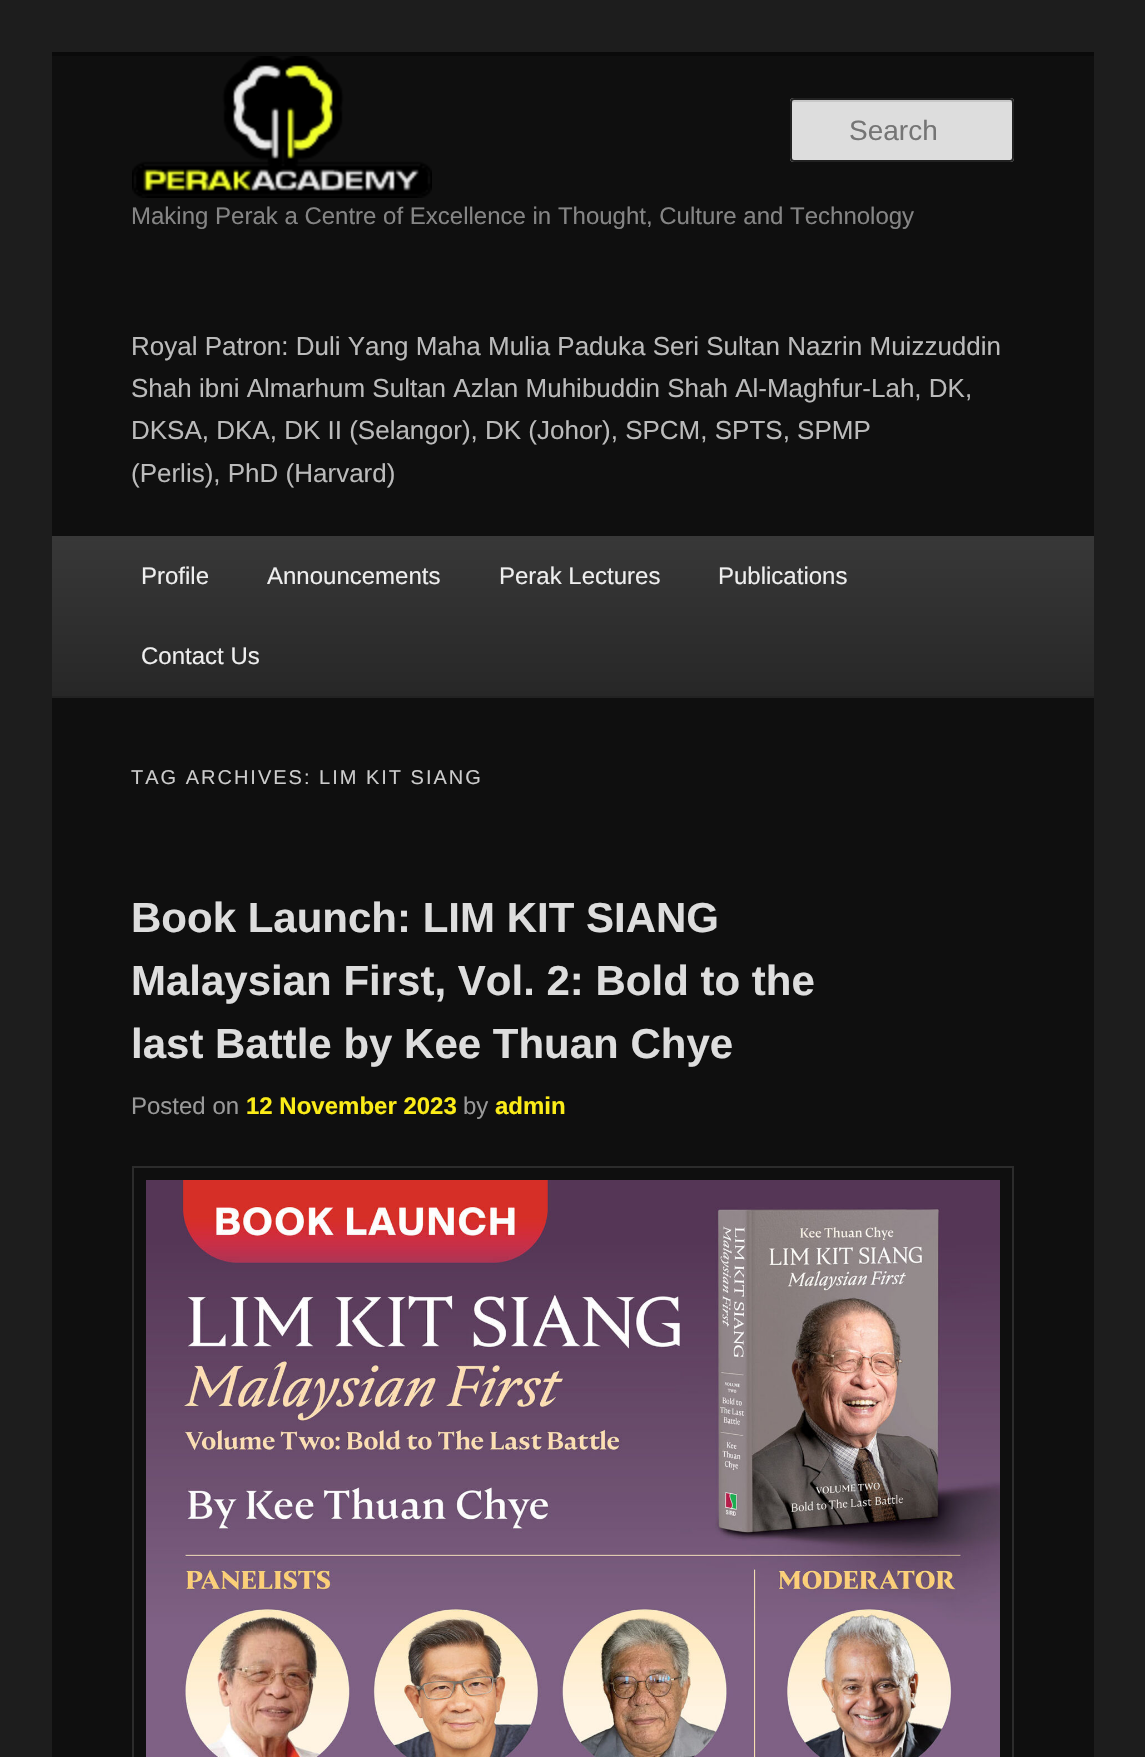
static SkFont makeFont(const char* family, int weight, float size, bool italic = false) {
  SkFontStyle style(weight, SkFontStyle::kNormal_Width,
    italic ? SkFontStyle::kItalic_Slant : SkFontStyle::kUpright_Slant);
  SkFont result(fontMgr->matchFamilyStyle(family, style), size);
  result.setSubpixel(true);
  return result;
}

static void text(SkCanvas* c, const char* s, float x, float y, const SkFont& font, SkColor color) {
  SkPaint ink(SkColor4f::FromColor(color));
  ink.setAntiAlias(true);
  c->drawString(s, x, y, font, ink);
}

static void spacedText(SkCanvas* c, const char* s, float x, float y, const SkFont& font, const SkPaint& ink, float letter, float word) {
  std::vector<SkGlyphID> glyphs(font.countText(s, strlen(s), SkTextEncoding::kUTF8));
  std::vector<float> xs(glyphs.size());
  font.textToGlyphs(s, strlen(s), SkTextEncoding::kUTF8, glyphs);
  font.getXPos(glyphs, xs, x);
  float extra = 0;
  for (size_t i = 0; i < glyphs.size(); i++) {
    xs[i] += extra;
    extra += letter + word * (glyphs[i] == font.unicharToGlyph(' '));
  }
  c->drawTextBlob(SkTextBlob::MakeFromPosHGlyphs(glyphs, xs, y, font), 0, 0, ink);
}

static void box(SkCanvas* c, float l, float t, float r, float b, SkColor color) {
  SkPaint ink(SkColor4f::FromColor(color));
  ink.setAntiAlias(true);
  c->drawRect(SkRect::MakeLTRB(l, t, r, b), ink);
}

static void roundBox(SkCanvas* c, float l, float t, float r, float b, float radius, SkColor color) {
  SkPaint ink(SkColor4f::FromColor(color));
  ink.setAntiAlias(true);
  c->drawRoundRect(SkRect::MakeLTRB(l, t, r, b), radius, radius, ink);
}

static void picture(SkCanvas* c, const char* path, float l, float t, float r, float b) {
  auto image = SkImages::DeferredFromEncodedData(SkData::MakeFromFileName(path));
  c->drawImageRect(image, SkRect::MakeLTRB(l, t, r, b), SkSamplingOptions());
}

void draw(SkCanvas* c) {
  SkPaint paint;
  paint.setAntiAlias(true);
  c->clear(0xff1d1d1d);
  box(c, 52, 56, 1094, 1757, 0xff0f0f0f);
  box(c, 52, 52, 1094, 56, 0xff0a0a0a);
  roundBox(c, 790, 98, 1014, 162, 4, 0xffdddddd);
  paint.setColor(0xffc7c7c7);
  c->drawPath(SkPathBuilder().moveTo(794, 102).lineTo(1010, 102).cubicTo(1011, 102, 1012, 103, 1012, 104).lineTo(1012, 102).cubicTo(1012, 101, 1011, 100, 1010, 100).lineTo(794, 100).cubicTo(793, 100, 792, 101, 792, 102).lineTo(792, 104).cubicTo(792, 103, 793, 102, 794, 102).close().detach(), paint);
  paint.setStyle(SkPaint::kStroke_Style);
  paint.setStrokeWidth(2);
  paint.setColor(0xff222222);
  c->drawRoundRect(SkRect::MakeLTRB(791, 99, 1013, 161), 3, 3, paint);
  SkFont face1 = makeFont("Liberation Sans", 400, 28);
  text(c, "Search", 849, 140, face1, 0xff757575);
  picture(c, "img_01.png", 132, 56, 432, 198);
  SkFont face2 = makeFont("Liberation Sans", 400, 24);
  text(c, "Making Perak a Centre of Excellence in Thought, Culture and Technology", 131, 224, face2, 0xff858585);
  SkFont face3 = makeFont("Liberation Sans", 400, 26);
  text(c, "Royal Patron: Duli Yang Maha Mulia Paduka Seri Sultan Nazrin Muizzuddin", 131, 355, face3, 0xffbbbbbb);
  text(c, "Shah ibni Almarhum Sultan Azlan Muhibuddin Shah Al-Maghfur-Lah, DK,", 131, 397, face3, 0xffbbbbbb);
  text(c, "DKSA, DKA, DK II (Selangor), DK (Johor), SPCM, SPTS, SPMP", 131, 439, face3, 0xffbbbbbb);
  text(c, "(Perlis), PhD (Harvard)", 131, 482, face3, 0xffbbbbbb);
  paint.setStyle(SkPaint::kFill_Style);
  {
    const SkColor colors[] = {0xff383838, 0xff272727};
    const float stops[] = {0, 1};
    const SkPoint ends[] = {{573, 536}, {573, 696}};
    paint.setShader(SkGradientShader::MakeLinear(ends, colors, stops, 2, SkTileMode::kClamp));
    paint.setAlpha(255);
  }
  c->drawRect(SkRect::MakeLTRB(52, 536, 1094, 696), paint);
  box(c, 52, 696, 1094, 698, 0xff222222);
  text(c, "Profile", 141, 584, face2, 0xffeeeeee);
  text(c, "Announcements", 267, 584, face2, 0xffeeeeee);
  text(c, "Perak Lectures", 499, 584, face2, 0xffeeeeee);
  text(c, "Publications", 718, 584, face2, 0xffeeeeee);
  text(c, "Contact Us", 141, 664, face2, 0xffeeeeee);
  SkFont face4 = makeFont("Liberation Sans", 400, 20);
  paint.setShader(nullptr);
  paint.setColor(0xffcccccc);
  spacedText(c, "TAG ARCHIVES: LIM KIT SIANG", 131, 784, face4, paint, 2, 0);
  SkFont face5 = makeFont("Liberation Sans", 700, 42);
  text(c, "Book Launch: LIM KIT SIANG", 131, 932, face5, 0xffdddddd);
  text(c, "Malaysian First, Vol. 2: Bold to the", 131, 995, face5, 0xffdddddd);
  text(c, "last Battle by Kee Thuan Chye", 131, 1058, face5, 0xffdddddd);
  text(c, "Posted on", 131, 1114, face2, 0xff999999);
  SkFont face6 = makeFont("Liberation Sans", 700, 24);
  text(c, "12 November 2023", 246, 1114, face6, 0xfffbec18);
  text(c, "by", 463, 1114, face2, 0xff999999);
  text(c, "admin", 495, 1114, face6, 0xfffbec18);
  paint.setStyle(SkPaint::kStroke_Style);
  paint.setColor(0xff2c2c2c);
  c->drawRect(SkRect::MakeLTRB(133, 1167, 1013, 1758), paint);
  picture(c, "img_02.png", 146, 1180, 1000, 1757);
}
